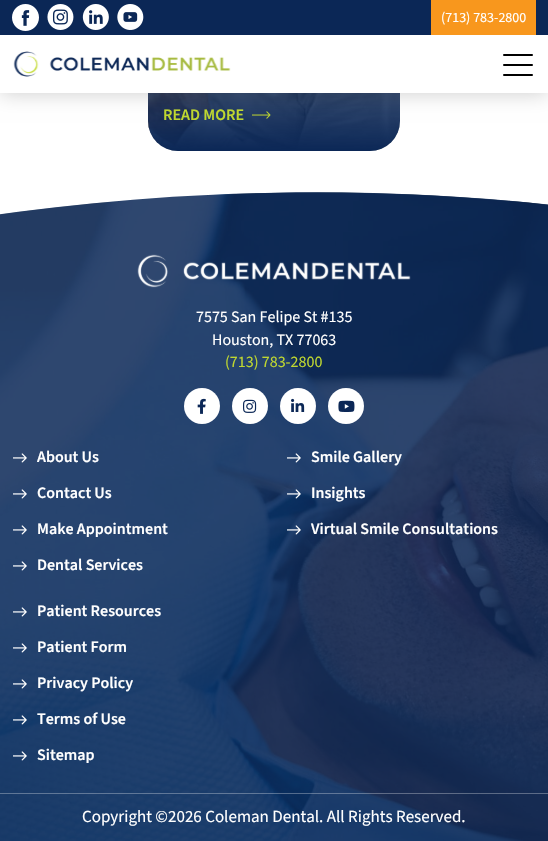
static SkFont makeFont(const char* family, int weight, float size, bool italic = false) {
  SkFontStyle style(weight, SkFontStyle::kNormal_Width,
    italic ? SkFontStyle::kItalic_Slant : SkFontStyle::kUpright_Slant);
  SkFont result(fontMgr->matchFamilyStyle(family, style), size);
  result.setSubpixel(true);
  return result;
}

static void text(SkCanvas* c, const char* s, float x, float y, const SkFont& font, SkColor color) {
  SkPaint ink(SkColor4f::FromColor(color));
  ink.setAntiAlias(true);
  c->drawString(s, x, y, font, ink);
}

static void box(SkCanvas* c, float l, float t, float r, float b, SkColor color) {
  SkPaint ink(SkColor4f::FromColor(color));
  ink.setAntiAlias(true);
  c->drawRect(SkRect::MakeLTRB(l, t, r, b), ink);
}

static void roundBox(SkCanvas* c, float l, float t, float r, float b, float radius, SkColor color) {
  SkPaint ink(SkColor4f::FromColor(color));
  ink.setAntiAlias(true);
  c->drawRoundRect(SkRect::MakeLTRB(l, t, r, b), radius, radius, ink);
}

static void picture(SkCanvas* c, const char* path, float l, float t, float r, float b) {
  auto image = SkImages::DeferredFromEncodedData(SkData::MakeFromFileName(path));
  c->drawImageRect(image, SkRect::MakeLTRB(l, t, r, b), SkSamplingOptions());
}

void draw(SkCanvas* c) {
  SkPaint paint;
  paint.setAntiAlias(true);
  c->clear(0xffffffff);
  picture(c, "img_06.png", 148, 93, 400, 151);
  {
    const SkColor colors[] = {0x000b2756, 0xff0b2756};
    const float stops[] = {0.24f, 1};
    const SkPoint ends[] = {{274, -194}, {274, 151}};
    paint.setShader(SkGradientShader::MakeLinear(ends, colors, stops, 2, SkTileMode::kClamp));
    paint.setAlpha(255);
  }
  c->drawRoundRect(SkRect::MakeLTRB(148, -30, 400, 151), 30, 30, paint);
  picture(c, "img_07.png", 252, 111, 271, 119);
  paint.setShader(nullptr);
  paint.setColor(0x33000000);
  paint.setMaskFilter(SkMaskFilter::MakeBlur(kNormal_SkBlurStyle, 10));
  c->drawRect(SkRect::MakeLTRB(0, 0, 548, 93), paint);
  paint.setMaskFilter(nullptr);
  box(c, 0, 35, 548, 93, 0xffffffff);
  box(c, 0, 0, 548, 35, 0xff0b2756);
  picture(c, "img_01.png", 12, 4, 39, 31);
  picture(c, "img_02.png", 47, 4, 74, 30);
  picture(c, "img_03.png", 82, 4, 109, 30);
  picture(c, "img_04.png", 117, 4, 144, 30);
  box(c, 431, 0, 536, 35, 0xfff8971d);
  SkFont face1 = makeFont("Source Sans 3", 400, 14);
  text(c, "(713) 783-2800", 441, 22, face1, 0xffffffff);
  picture(c, "img_05.png", 13, 51, 231, 77);
  roundBox(c, 503, 64, 533, 66, 1, 0xff000000);
  roundBox(c, 503, 54, 533, 56, 1, 0xff000000);
  roundBox(c, 503, 74, 533, 76, 1, 0xff000000);
  SkFont face2 = makeFont("Source Sans 3", 600, 16);
  text(c, "READ MORE", 163, 120, face2, 0xffbfd730);
  picture(c, "img_08.png", 0, 192, 548, 841);
  paint.setColor(0xd90b2756);
  c->drawPath(SkPathBuilder().moveTo(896, 275).cubicTo(342, 106, -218, 234, -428, 322).lineTo(-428, 841).lineTo(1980, 841).lineTo(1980, 266).cubicTo(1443, 382, 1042, 304, 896, 275).close().detach(), paint);
  picture(c, "img_09.png", 137, 254, 411, 288);
  SkFont face3 = makeFont("Source Sans 3", 400, 16);
  text(c, "7575 San Felipe St #135", 196, 322, face3, 0xffffffff);
  text(c, "Houston, TX 77063", 212, 345, face3, 0xffffffff);
  text(c, "(713) 783-2800", 225, 367, face3, 0xffbfd730);
  paint.setColor(0xffffffff);
  c->drawCircle(202, 406, 18, paint);
  picture(c, "img_10.png", 197, 398, 206, 414);
  c->drawCircle(250, 406, 18, paint);
  picture(c, "img_11.png", 243, 399, 257, 413);
  c->drawCircle(298, 406, 18, paint);
  picture(c, "img_12.png", 291, 398, 305, 412);
  c->drawCircle(346, 406, 18, paint);
  picture(c, "img_13.png", 338, 400, 355, 412);
  picture(c, "img_14.png", 13, 453, 27, 463);
  text(c, "About Us", 37, 462, face2, 0xffffffff);
  picture(c, "img_15.png", 13, 489, 27, 499);
  text(c, "Contact Us", 37, 498, face2, 0xffffffff);
  picture(c, "img_16.png", 13, 525, 27, 535);
  text(c, "Make Appointment", 37, 534, face2, 0xffffffff);
  picture(c, "img_17.png", 13, 561, 27, 571);
  text(c, "Dental Services", 37, 570, face2, 0xffffffff);
  picture(c, "img_18.png", 287, 453, 301, 463);
  text(c, "Smile Gallery", 311, 462, face2, 0xffffffff);
  picture(c, "img_19.png", 287, 489, 301, 499);
  text(c, "Insights", 311, 498, face2, 0xffffffff);
  picture(c, "img_20.png", 287, 525, 301, 535);
  text(c, "Virtual Smile Consultations", 311, 534, face2, 0xffffffff);
  picture(c, "img_21.png", 13, 607, 27, 617);
  text(c, "Patient Resources", 37, 616, face2, 0xffffffff);
  picture(c, "img_22.png", 13, 643, 27, 653);
  text(c, "Patient Form", 37, 652, face2, 0xffffffff);
  picture(c, "img_23.png", 13, 679, 27, 689);
  text(c, "Privacy Policy", 37, 688, face2, 0xffffffff);
  picture(c, "img_24.png", 13, 715, 27, 725);
  text(c, "Terms of Use", 37, 724, face2, 0xffffffff);
  picture(c, "img_25.png", 13, 751, 27, 761);
  text(c, "Sitemap", 37, 760, face2, 0xffffffff);
  box(c, 0, 793, 548, 794, 0x4dffffff);
  SkFont face4 = makeFont("Source Sans 3", 400, 17);
  text(c, "Copyright ©2026 Coleman Dental. All Rights Reserved.", 82, 822, face4, 0xffffffff);
}
